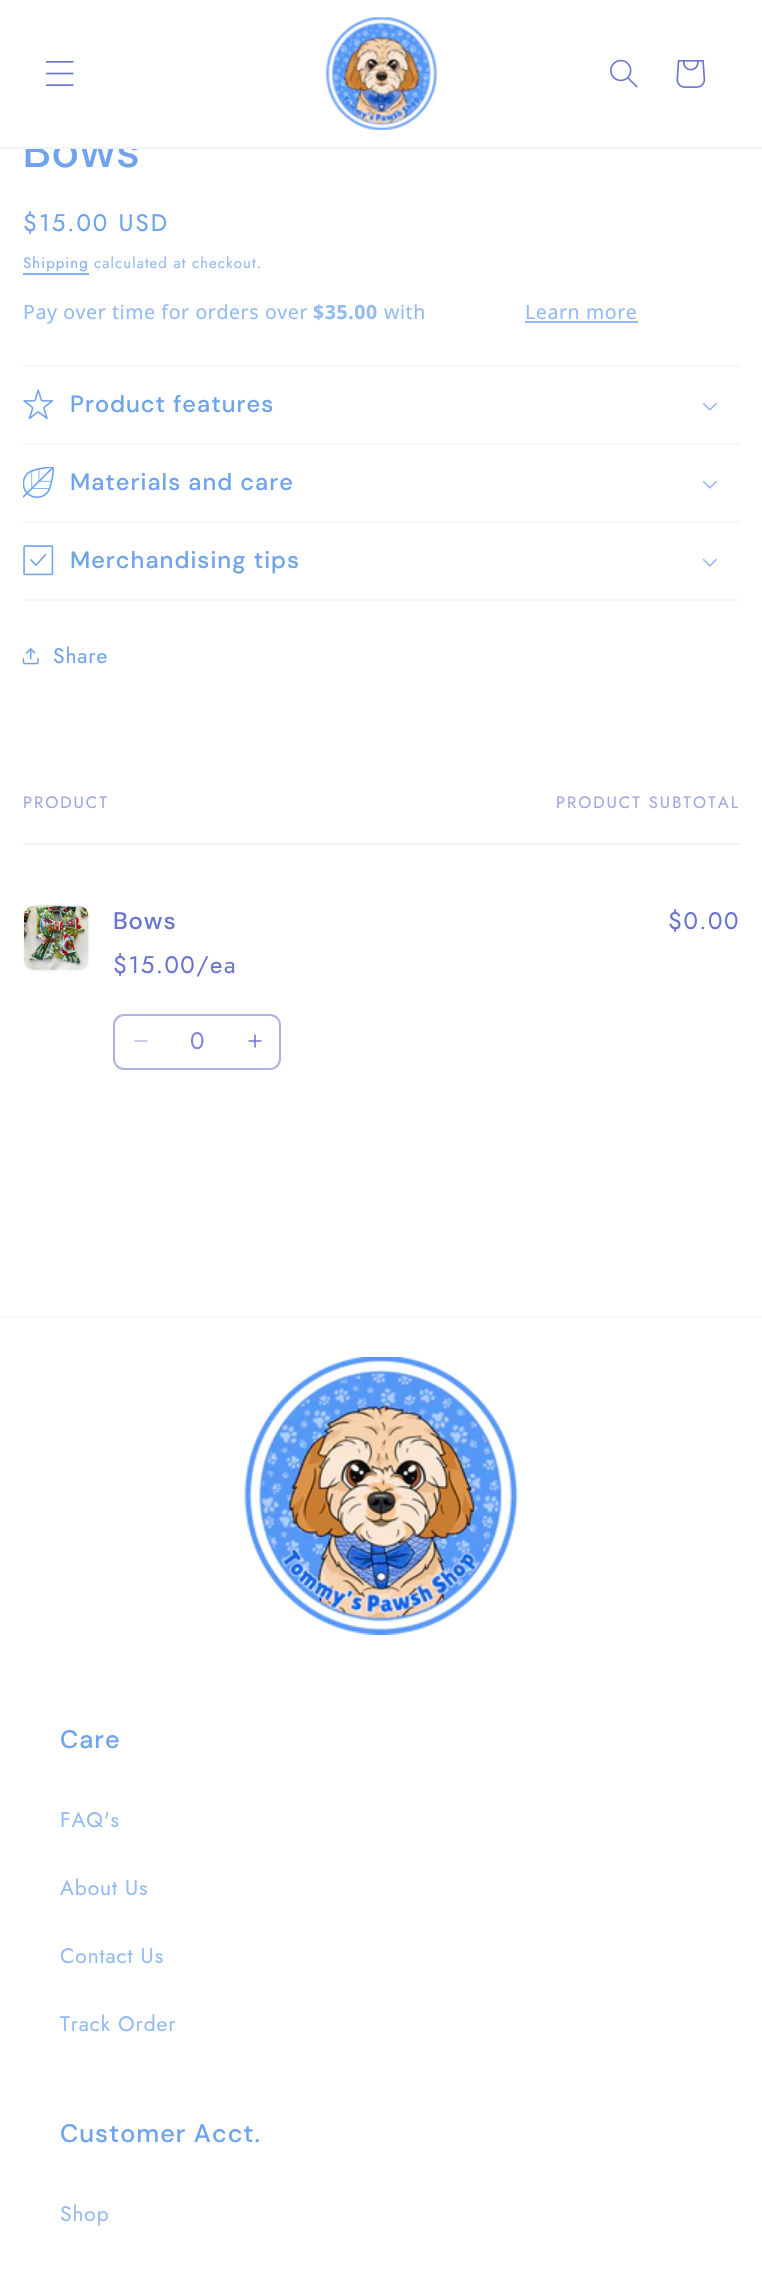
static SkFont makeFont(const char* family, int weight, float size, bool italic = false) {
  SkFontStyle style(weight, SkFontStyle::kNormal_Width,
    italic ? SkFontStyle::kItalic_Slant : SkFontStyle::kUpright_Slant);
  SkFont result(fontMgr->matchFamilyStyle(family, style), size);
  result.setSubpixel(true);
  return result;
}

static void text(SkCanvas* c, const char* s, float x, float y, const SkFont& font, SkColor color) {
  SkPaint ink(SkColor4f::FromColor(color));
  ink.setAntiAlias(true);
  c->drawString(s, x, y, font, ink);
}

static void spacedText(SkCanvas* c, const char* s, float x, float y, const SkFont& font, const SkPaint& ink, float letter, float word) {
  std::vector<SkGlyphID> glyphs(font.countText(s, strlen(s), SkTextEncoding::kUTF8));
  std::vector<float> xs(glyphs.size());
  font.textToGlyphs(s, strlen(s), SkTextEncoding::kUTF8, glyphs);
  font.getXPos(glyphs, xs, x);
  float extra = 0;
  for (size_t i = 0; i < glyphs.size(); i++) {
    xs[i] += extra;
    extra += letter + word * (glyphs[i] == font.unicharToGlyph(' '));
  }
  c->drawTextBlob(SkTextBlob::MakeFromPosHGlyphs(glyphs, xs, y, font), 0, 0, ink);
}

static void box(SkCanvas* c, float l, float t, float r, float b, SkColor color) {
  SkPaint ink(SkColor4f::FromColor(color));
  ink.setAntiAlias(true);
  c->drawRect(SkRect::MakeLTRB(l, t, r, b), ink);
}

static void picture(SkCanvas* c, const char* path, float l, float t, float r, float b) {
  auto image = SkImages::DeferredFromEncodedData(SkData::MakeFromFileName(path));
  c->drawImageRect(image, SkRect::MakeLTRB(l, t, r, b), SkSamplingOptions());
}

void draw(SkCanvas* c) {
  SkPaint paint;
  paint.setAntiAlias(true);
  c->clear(0xffffffff);
  SkFont face1 = makeFont("DM Sans", 500, 47);
  paint.setColor(0xff6fa3ec);
  spacedText(c, "Bows", 23, 167, face1, paint, 1, 0);
  box(c, 25, 133, 136, 147, 0xffffffff);
  box(c, 0, 147, 762, 149, 0xfff3f4fb);
  picture(c, "img_01.png", 45, 61, 74, 86);
  picture(c, "img_02.png", 325, 17, 438, 130);
  picture(c, "img_03.png", 610, 59, 638, 88);
  picture(c, "img_04.png", 676, 60, 706, 88);
  SkFont face2 = makeFont("Jost", 400, 24);
  spacedText(c, "$15.00 USD", 23, 231, face2, paint, 2, 0);
  SkFont face3 = makeFont("Jost", 400, 15);
  paint.setColor(0xff85b1ef);
  spacedText(c, "Shipping", 23, 268, face3, paint, 1.05f, 0);
  box(c, 23, 273, 89, 275, 0xff85b1ef);
  paint.setColor(0xff93baf1);
  spacedText(c, "calculated at checkout.", 94, 268, face3, paint, 1.05f, 0);
  SkFont face4 = makeFont("Noto Sans", 400, 19.5f);
  spacedText(c, "Pay over time for orders over", 23, 319, face4, paint, 0.6f, 0);
  SkFont face5 = makeFont("Noto Sans", 700, 19.5f);
  spacedText(c, "$35.00", 313, 319, face5, paint, 0.6f, 0);
  spacedText(c, "with", 384, 319, face4, paint, 0.6f, 0);
  spacedText(c, "Learn more", 525, 319, face4, paint, 0.6f, 0);
  box(c, 525, 321, 638, 323, 0xff93baf1);
  box(c, 23, 365, 740, 367, 0xfff3f8fd);
  box(c, 23, 443, 740, 445, 0xfff3f8fd);
  picture(c, "img_05.png", 23, 389, 54, 420);
  SkFont face6 = makeFont("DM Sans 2", 500, 23.6f);
  paint.setColor(0xff6fa3ec);
  spacedText(c, "Product features", 70, 412, face6, paint, 1, 0);
  picture(c, "img_06.png", 702, 402, 717, 411);
  box(c, 23, 521, 740, 523, 0xfff3f8fd);
  picture(c, "img_07.png", 23, 467, 54, 498);
  spacedText(c, "Materials and care", 70, 490, face6, paint, 1, 0);
  picture(c, "img_06.png", 702, 480, 717, 489);
  box(c, 23, 599, 740, 601, 0xfff3f8fd);
  picture(c, "img_08.png", 23, 545, 54, 576);
  spacedText(c, "Merchandising tips", 70, 568, face6, paint, 1, 0);
  picture(c, "img_06.png", 702, 558, 717, 567);
  picture(c, "img_09.png", 22, 648, 39, 665);
  SkFont face7 = makeFont("Jost", 400, 21);
  spacedText(c, "Share", 53, 663, face7, paint, 0.9f, 0);
  box(c, 23, 843, 740, 845, 0xfff3f4fb);
  SkFont face8 = makeFont("Jost", 400, 16.5f);
  paint.setColor(0xffa0a6e0);
  spacedText(c, "PRODUCT", 23, 808, face8, paint, 2, 0);
  spacedText(c, "PRODUCT SUBTOTAL", 556, 808, face8, paint, 2, 0);
  paint.setStyle(SkPaint::kStroke_Style);
  paint.setStrokeWidth(2);
  paint.setColor(0xfff8f8fd);
  c->drawRoundRect(SkRect::MakeLTRB(24, 906, 89, 971), 11, 11, paint);
  picture(c, "img_10.png", 24, 905, 89, 970);
  SkFont face9 = makeFont("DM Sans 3", 500, 24);
  paint.setStyle(SkPaint::kFill_Style);
  paint.setColor(0xff6a73ce);
  spacedText(c, "Bows", 113, 929, face9, paint, 0.9f, 0);
  spacedText(c, "$15.00/ea", 113, 973, face2, paint, 1.5f, 0);
  spacedText(c, "$0.00", 668, 929, face2, paint, 1.5f, 0);
  picture(c, "img_11.png", 134, 1040, 148, 1042);
  picture(c, "img_12.png", 248, 1034, 262, 1048);
  paint.setStyle(SkPaint::kStroke_Style);
  paint.setColor(0xffadb2e4);
  c->drawRoundRect(SkRect::MakeLTRB(114, 1015, 280, 1069), 10, 10, paint);
  text(c, "0", 190, 1049, face2, 0xff8088d5);
  box(c, 0, 1316, 762, 1318, 0xfff3f8fd);
  picture(c, "img_13.png", 244, 1357, 518, 1635);
  SkFont face10 = makeFont("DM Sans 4", 500, 25.25f);
  paint.setStyle(SkPaint::kFill_Style);
  paint.setColor(0xff6fa3ec);
  spacedText(c, "Care", 60, 1748, face10, paint, 1, 0);
  paint.setColor(0xff93baf1);
  spacedText(c, "FAQ's", 60, 1827, face7, paint, 0.9f, 0);
  spacedText(c, "About Us", 60, 1895, face7, paint, 0.9f, 0);
  spacedText(c, "Contact Us", 60, 1963, face7, paint, 0.9f, 0);
  spacedText(c, "Track Order", 60, 2031, face7, paint, 0.9f, 0);
  paint.setColor(0xff6fa3ec);
  spacedText(c, "Customer Acct.", 60, 2142, face10, paint, 1, 0);
  paint.setColor(0xff93baf1);
  spacedText(c, "Shop", 60, 2221, face7, paint, 0.9f, 0);
}
